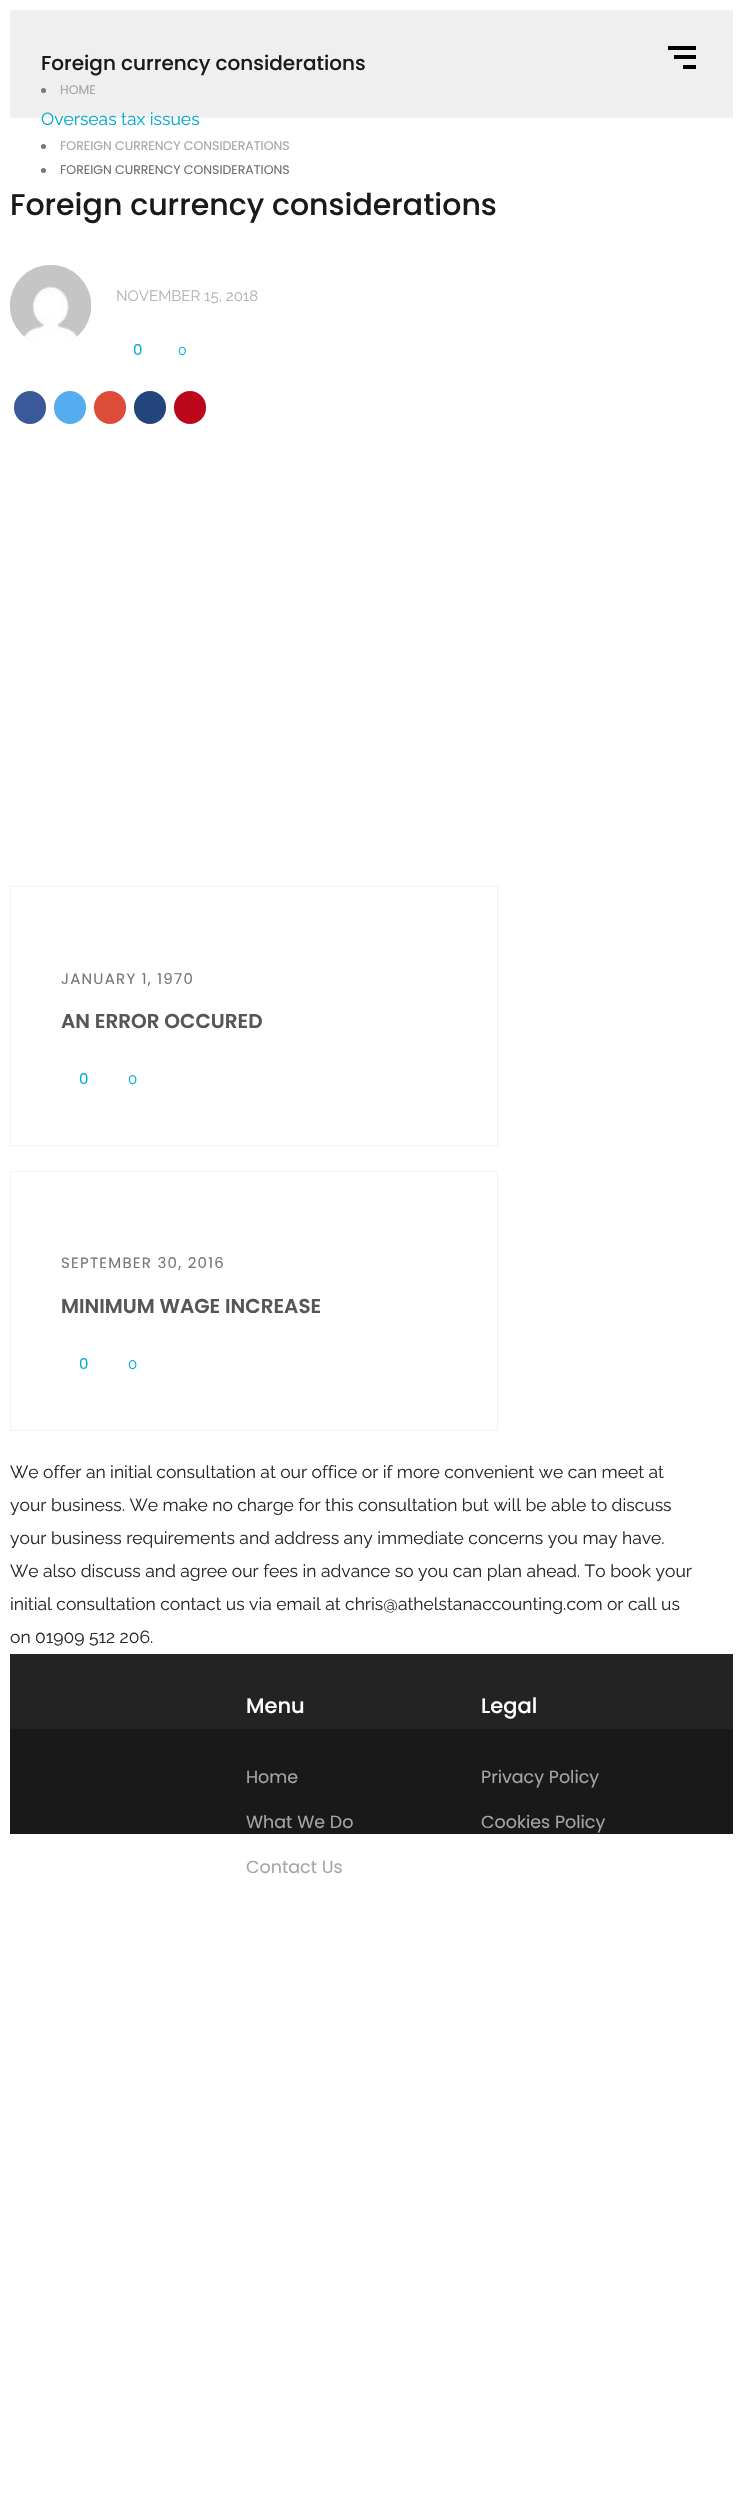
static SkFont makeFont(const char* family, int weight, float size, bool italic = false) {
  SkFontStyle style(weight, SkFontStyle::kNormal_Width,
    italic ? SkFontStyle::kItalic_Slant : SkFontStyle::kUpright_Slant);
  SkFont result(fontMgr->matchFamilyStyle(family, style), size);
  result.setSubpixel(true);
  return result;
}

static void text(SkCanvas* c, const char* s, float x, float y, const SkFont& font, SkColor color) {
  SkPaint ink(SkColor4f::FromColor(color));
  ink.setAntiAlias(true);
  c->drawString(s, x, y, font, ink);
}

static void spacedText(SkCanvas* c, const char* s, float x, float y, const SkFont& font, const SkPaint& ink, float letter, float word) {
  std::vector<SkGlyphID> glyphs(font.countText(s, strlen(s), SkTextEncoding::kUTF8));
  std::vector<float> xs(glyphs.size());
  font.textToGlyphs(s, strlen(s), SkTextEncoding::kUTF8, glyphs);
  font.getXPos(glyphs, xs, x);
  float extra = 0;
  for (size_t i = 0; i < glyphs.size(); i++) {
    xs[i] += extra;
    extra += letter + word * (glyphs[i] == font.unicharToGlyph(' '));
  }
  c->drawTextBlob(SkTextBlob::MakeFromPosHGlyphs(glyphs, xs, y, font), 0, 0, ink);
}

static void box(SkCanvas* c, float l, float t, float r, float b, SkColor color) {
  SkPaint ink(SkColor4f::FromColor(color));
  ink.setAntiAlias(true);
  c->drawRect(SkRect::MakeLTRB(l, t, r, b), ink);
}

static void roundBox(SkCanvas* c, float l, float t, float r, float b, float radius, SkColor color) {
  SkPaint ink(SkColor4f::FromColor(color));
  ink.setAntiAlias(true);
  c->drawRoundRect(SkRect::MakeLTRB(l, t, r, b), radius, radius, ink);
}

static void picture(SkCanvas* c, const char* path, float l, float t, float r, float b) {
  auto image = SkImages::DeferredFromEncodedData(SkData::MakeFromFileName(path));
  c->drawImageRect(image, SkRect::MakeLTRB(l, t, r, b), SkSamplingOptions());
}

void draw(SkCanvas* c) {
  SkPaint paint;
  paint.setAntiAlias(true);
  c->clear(0xffffffff);
  box(c, 10, 10, 733, 11, 0xfff1f2f2);
  box(c, 10, 11, 733, 118, 0xffefefef);
  box(c, 674, 55, 696, 59, 0xff000000);
  box(c, 668, 46, 696, 50, 0xff000000);
  box(c, 683, 65, 696, 69, 0xff000000);
  box(c, 10, 116, 733, 117, 0xfff1f2f2);
  SkFont face1 = makeFont("Poppins", 500, 20);
  text(c, "Foreign currency considerations", 41, 70, face1, 0xff1a1a1a);
  paint.setColor(0xff777777);
  c->drawCircle(43.5f, 90.5f, 2.5f, paint);
  SkFont face2 = makeFont("Poppins", 400, 12.5f);
  text(c, "HOME", 60, 94, face2, 0xffa5a5a5);
  SkFont face3 = makeFont("Raleway", 400, 17.5f);
  text(c, "Overseas tax issues", 41, 125, face3, 0xff00a9d1);
  c->drawCircle(43.5f, 146.5f, 2.5f, paint);
  text(c, "FOREIGN CURRENCY CONSIDERATIONS", 60, 150, face2, 0xffa5a5a5);
  c->drawCircle(43.5f, 170.5f, 2.5f, paint);
  text(c, "FOREIGN CURRENCY CONSIDERATIONS", 60, 174, face2, 0xff6d6e71);
  SkFont face4 = makeFont("Poppins", 500, 30);
  text(c, "Foreign currency considerations", 10, 215, face4, 0xff1a1a1a);
  paint.setColor(0xffcccccc);
  c->drawCircle(50.5f, 305.5f, 40.5f, paint);
  picture(c, "img_01.png", 10, 265, 91, 346);
  SkFont face5 = makeFont("Raleway", 400, 15);
  text(c, "NOVEMBER 15, 2018", 116, 301, face5, 0xffb4b4b4);
  SkFont face6 = makeFont("Poppins", 400, 15);
  text(c, "0", 133, 355, face6, 0xff00a9d1);
  SkFont face7 = makeFont("Raleway", 400, 14);
  text(c, "0", 178, 355, face7, 0xff00a9d1);
  roundBox(c, 14, 391, 46, 424, 16, 0xff3b5999);
  roundBox(c, 54, 391, 86, 424, 16, 0xff55acee);
  roundBox(c, 94, 391, 126, 424, 16, 0xffdd4b39);
  roundBox(c, 134, 391, 166, 424, 16, 0xff24447c);
  roundBox(c, 174, 391, 206, 424, 16, 0xffbd081c);
  paint.setStyle(SkPaint::kStroke_Style);
  paint.setStrokeWidth(1);
  paint.setColor(0xfff2f2f2);
  c->drawRect(SkRect::MakeLTRB(10.5f, 886.5f, 497.5f, 1145.5f), paint);
  paint.setStyle(SkPaint::kFill_Style);
  paint.setColor(0xff777777);
  spacedText(c, "JANUARY 1, 1970", 61, 984, face6, paint, 1.25f, 0);
  SkFont face8 = makeFont("Poppins", 600, 20);
  text(c, "AN ERROR OCCURED", 61, 1028, face8, 0xff565656);
  text(c, "0", 79, 1084, face6, 0xff00a9d1);
  text(c, "0", 128, 1084, face5, 0xff00a9d1);
  paint.setStyle(SkPaint::kStroke_Style);
  paint.setColor(0xfff2f2f2);
  c->drawRect(SkRect::MakeLTRB(10.5f, 1171.5f, 497.5f, 1430.5f), paint);
  paint.setStyle(SkPaint::kFill_Style);
  paint.setColor(0xff777777);
  spacedText(c, "SEPTEMBER 30, 2016", 61, 1268, face6, paint, 1.25f, 0);
  text(c, "MINIMUM WAGE INCREASE", 61, 1313, face8, 0xff565656);
  text(c, "0", 79, 1369, face6, 0xff00a9d1);
  text(c, "0", 128, 1369, face5, 0xff00a9d1);
  text(c, "We offer an initial consultation at our office or if more convenient we can meet at", 10, 1478, face3, 0xff272728);
  text(c, "your business. We make no charge for this consultation but will be able to discuss", 10, 1511, face3, 0xff272728);
  text(c, "your business requirements and address any immediate concerns you may have.", 10, 1544, face3, 0xff272728);
  text(c, "We also discuss and agree our fees in advance so you can plan ahead. To book your", 10, 1577, face3, 0xff272728);
  text(c, "initial consultation contact us via email at chris@athelstanaccounting.com or call us", 10, 1610, face3, 0xff272728);
  text(c, "on 01909 512 206.", 10, 1643, face3, 0xff272728);
  box(c, 10, 1654, 733, 1729, 0xff232323);
  SkFont face9 = makeFont("Poppins", 500, 21);
  text(c, "Menu", 246, 1713, face9, 0xffffffff);
  box(c, 10, 1729, 733, 1834, 0xff191919);
  SkFont face10 = makeFont("Poppins", 400, 17.5f);
  text(c, "Home", 246, 1783, face10, 0xffa5a5a5);
  text(c, "What We Do", 246, 1828, face10, 0xffa5a5a5);
  text(c, "Contact Us", 246, 1873, face10, 0xffa5a5a5);
  text(c, "Legal", 481, 1713, face9, 0xffffffff);
  text(c, "Privacy Policy", 481, 1783, face10, 0xffa5a5a5);
  text(c, "Cookies Policy", 481, 1828, face10, 0xffa5a5a5);
}
